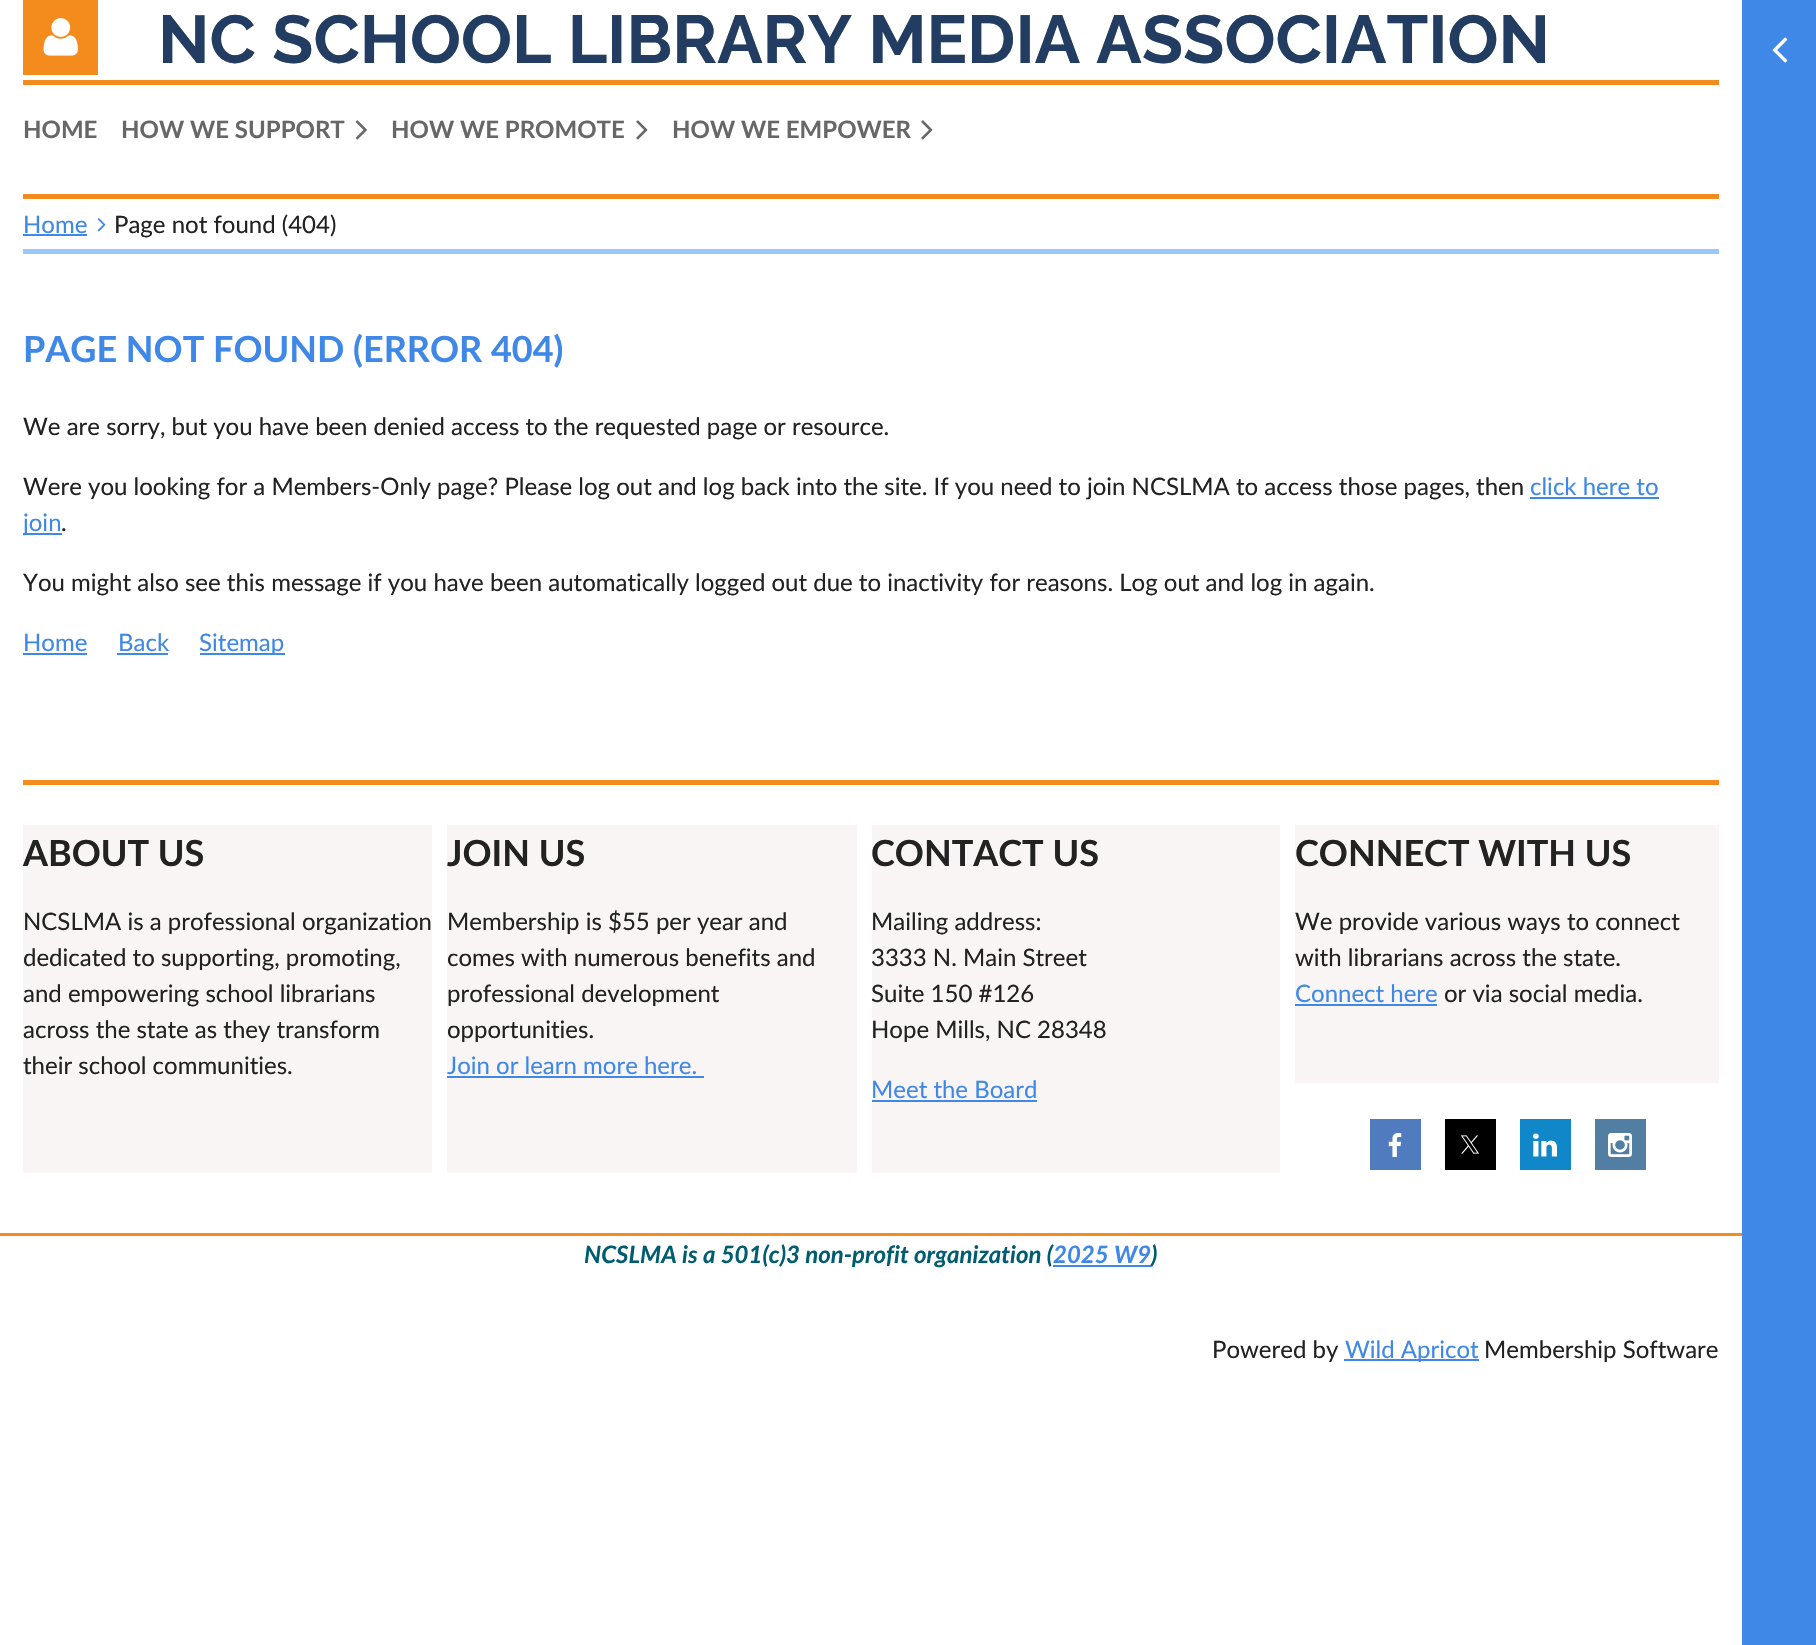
static SkFont makeFont(const char* family, int weight, float size, bool italic = false) {
  SkFontStyle style(weight, SkFontStyle::kNormal_Width,
    italic ? SkFontStyle::kItalic_Slant : SkFontStyle::kUpright_Slant);
  SkFont result(fontMgr->matchFamilyStyle(family, style), size);
  result.setSubpixel(true);
  return result;
}

static void text(SkCanvas* c, const char* s, float x, float y, const SkFont& font, SkColor color) {
  SkPaint ink(SkColor4f::FromColor(color));
  ink.setAntiAlias(true);
  c->drawString(s, x, y, font, ink);
}

static void box(SkCanvas* c, float l, float t, float r, float b, SkColor color) {
  SkPaint ink(SkColor4f::FromColor(color));
  ink.setAntiAlias(true);
  c->drawRect(SkRect::MakeLTRB(l, t, r, b), ink);
}

static void picture(SkCanvas* c, const char* path, float l, float t, float r, float b) {
  auto image = SkImages::DeferredFromEncodedData(SkData::MakeFromFileName(path));
  c->drawImageRect(image, SkRect::MakeLTRB(l, t, r, b), SkSamplingOptions());
}

void draw(SkCanvas* c) {
  SkPaint paint;
  paint.setAntiAlias(true);
  c->clear(0xffffffff);
  box(c, 23, 0, 98, 75, 0xfff38c1c);
  picture(c, "img_01.png", 43, 18, 78, 56);
  SkFont face1 = makeFont("Raleway", 700, 67.5f);
  text(c, "NC SCHOOL LIBRARY MEDIA ASSOCIATION", 158, 63, face1, 0xff223d61);
  box(c, 23, 80, 1719, 85, 0xfff38c1c);
  SkFont face2 = makeFont("Lato", 700, 24);
  text(c, "HOME", 23, 138, face2, 0xff676767);
  text(c, "HOW WE SUPPORT", 121, 138, face2, 0xff676767);
  picture(c, "img_02.png", 355, 120, 367, 140);
  text(c, "HOW WE PROMOTE", 391, 138, face2, 0xff676767);
  picture(c, "img_03.png", 636, 120, 648, 140);
  text(c, "HOW WE EMPOWER", 672, 138, face2, 0xff676767);
  picture(c, "img_03.png", 921, 120, 933, 140);
  box(c, 23, 194, 1719, 199, 0xfff38c1c);
  SkFont face3 = makeFont("Lato", 400, 24);
  text(c, "Home", 23, 233, face3, 0xff3f88e8);
  box(c, 23, 234, 87, 236, 0xff3f88e8);
  picture(c, "img_04.png", 97, 218, 106, 232);
  text(c, "Page not found (404)", 114, 233, face3, 0xff222222);
  box(c, 23, 249, 1719, 254, 0xff9bc7ff);
  SkFont face4 = makeFont("Lato", 700, 36);
  text(c, "PAGE NOT FOUND (ERROR 404)", 23, 362, face4, 0xff3f88e8);
  text(c, "We are sorry, but you have been denied access to the requested page or resource.", 23, 435, face3, 0xff222222);
  text(c, "Were you looking for a Members-Only page? Please log out and log back into the site. If you need to join NCSLMA to access those pages, then", 23, 495, face3, 0xff222222);
  text(c, "click here to", 1530, 495, face3, 0xff3f88e8);
  box(c, 1530, 497, 1659, 499, 0xff3f88e8);
  box(c, 23, 533, 62, 535, 0xff3f88e8);
  c->save();
  c->clipRect(SkRect::MakeLTRB(23, 324, 1719, 660));
  text(c, "join", 23, 531, face3, 0xff3f88e8);
  c->restore();
  text(c, ".", 61, 531, face3, 0xff222222);
  text(c, "You might also see this message if you have been automatically logged out due to inactivity for reasons. Log out and log in again.", 23, 591, face3, 0xff222222);
  text(c, "Home", 23, 651, face3, 0xff3f88e8);
  box(c, 23, 653, 87, 655, 0xff3f88e8);
  text(c, "Back", 118, 651, face3, 0xff3f88e8);
  box(c, 117, 653, 168, 655, 0xff3f88e8);
  box(c, 200, 653, 285, 655, 0xff3f88e8);
  text(c, "Sitemap", 199, 651, face3, 0xff3f88e8);
  box(c, 23, 780, 1719, 785, 0xfff38c1c);
  box(c, 23, 825, 432, 1173, 0xfff9f5f5);
  text(c, "ABOUT US", 23, 866, face4, 0xff222222);
  text(c, "NCSLMA is a professional organization", 23, 930, face3, 0xff222222);
  text(c, "dedicated to supporting, promoting,", 23, 966, face3, 0xff222222);
  text(c, "and empowering school librarians", 23, 1002, face3, 0xff222222);
  text(c, "across the state as they transform", 23, 1038, face3, 0xff222222);
  text(c, "their school communities.", 23, 1074, face3, 0xff222222);
  box(c, 447, 825, 857, 1173, 0xfff9f5f5);
  text(c, "JOIN US", 447, 866, face4, 0xff222222);
  text(c, "Membership is $55 per year and", 447, 930, face3, 0xff222222);
  text(c, "comes with numerous benefits and", 447, 966, face3, 0xff222222);
  text(c, "professional development", 447, 1002, face3, 0xff222222);
  text(c, "opportunities.", 447, 1038, face3, 0xff222222);
  text(c, "Join or learn more here.", 447, 1074, face3, 0xff3f88e8);
  box(c, 447, 1076, 704, 1078, 0xff3f88e8);
  box(c, 872, 825, 1280, 1173, 0xfff9f5f5);
  text(c, "CONTACT US", 871, 866, face4, 0xff222222);
  text(c, "Mailing address:", 871, 930, face3, 0xff222222);
  text(c, "3333 N. Main Street", 871, 966, face3, 0xff222222);
  text(c, "Suite 150 #126", 871, 1002, face3, 0xff222222);
  text(c, "Hope Mills, NC 28348", 871, 1038, face3, 0xff222222);
  text(c, "Meet the Board", 871, 1098, face3, 0xff3f88e8);
  box(c, 872, 1100, 1037, 1102, 0xff3f88e8);
  box(c, 1295, 825, 1719, 1083, 0xfff9f5f5);
  text(c, "CONNECT WITH US", 1295, 866, face4, 0xff222222);
  text(c, "We provide various ways to connect", 1295, 930, face3, 0xff222222);
  text(c, "with librarians across the state.", 1295, 966, face3, 0xff222222);
  text(c, "Connect here", 1295, 1002, face3, 0xff3f88e8);
  box(c, 1295, 1004, 1437, 1006, 0xff3f88e8);
  text(c, "or via social media.", 1444, 1002, face3, 0xff222222);
  box(c, 1370, 1119, 1421, 1170, 0xff507bbe);
  picture(c, "img_05.png", 1388, 1133, 1402, 1157);
  box(c, 1445, 1119, 1496, 1170, 0xff000000);
  picture(c, "img_06.png", 1461, 1135, 1479, 1154);
  box(c, 1520, 1119, 1571, 1170, 0xff1087c9);
  picture(c, "img_07.png", 1533, 1133, 1557, 1157);
  box(c, 1595, 1119, 1646, 1170, 0xff527ea3);
  picture(c, "img_08.png", 1608, 1133, 1632, 1157);
  box(c, 0, 1233, 1742, 1236, 0xfff38c1c);
  SkFont face5 = makeFont("Lato", 700, 24, true);
  text(c, "NCSLMA is a 501(c)3 non-profit organization (", 584, 1263, face5, 0xff005d71);
  box(c, 1053, 1265, 1151, 1267, 0xff3f88e8);
  text(c, "2025 W9", 1053, 1263, face5, 0xff3f88e8);
  text(c, ")", 1151, 1263, face5, 0xff005d71);
  text(c, "Powered by", 1212, 1358, face3, 0xff222222);
  box(c, 1344, 1359, 1479, 1361, 0xff3f88e8);
  text(c, "Wild Apricot", 1345, 1358, face3, 0xff3f88e8);
  text(c, "Membership Software", 1484, 1358, face3, 0xff222222);
  box(c, 1742, 0, 1816, 1645, 0xff3f88e8);
  picture(c, "img_09.png", 1772, 37, 1788, 63);
}
